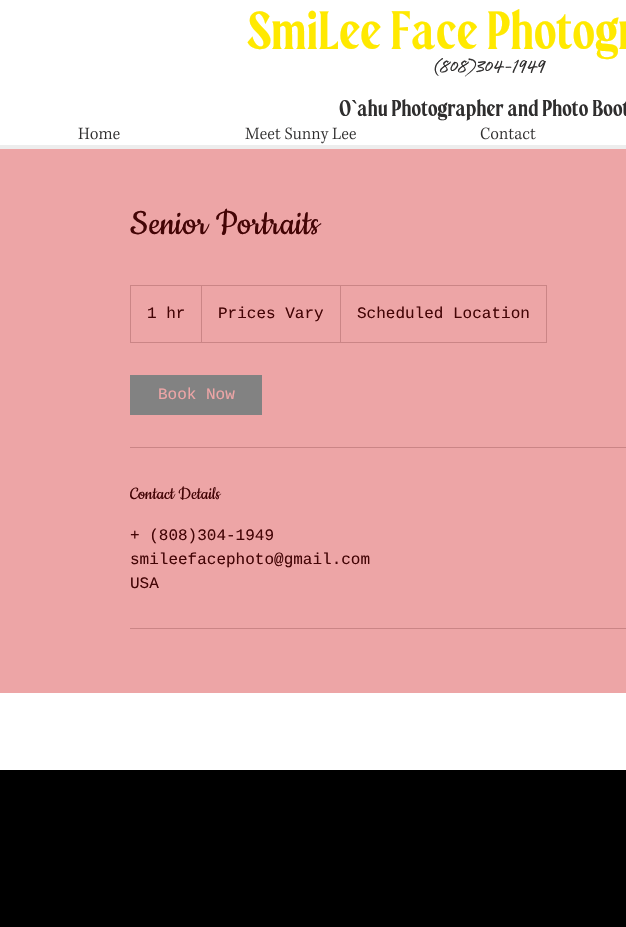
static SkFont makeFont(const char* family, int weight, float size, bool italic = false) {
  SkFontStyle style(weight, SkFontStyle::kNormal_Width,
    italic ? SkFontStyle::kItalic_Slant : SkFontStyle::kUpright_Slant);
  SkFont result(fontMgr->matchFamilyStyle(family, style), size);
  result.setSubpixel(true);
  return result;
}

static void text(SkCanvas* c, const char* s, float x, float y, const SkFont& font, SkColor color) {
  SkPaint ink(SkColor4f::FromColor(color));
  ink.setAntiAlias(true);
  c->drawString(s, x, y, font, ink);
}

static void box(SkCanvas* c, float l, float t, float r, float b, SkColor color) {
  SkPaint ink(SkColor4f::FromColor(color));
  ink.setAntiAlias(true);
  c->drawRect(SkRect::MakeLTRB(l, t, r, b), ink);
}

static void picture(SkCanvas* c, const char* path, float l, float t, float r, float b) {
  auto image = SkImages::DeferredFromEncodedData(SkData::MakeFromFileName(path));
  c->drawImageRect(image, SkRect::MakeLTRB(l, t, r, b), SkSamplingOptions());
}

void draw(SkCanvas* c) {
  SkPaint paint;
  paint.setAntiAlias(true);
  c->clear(0xff000000);
  box(c, 0, 0, 626, 145, 0xffffffff);
  box(c, 0, 145, 626, 149, 0xffededed);
  SkFont face1 = makeFont("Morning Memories", 400, 47);
  text(c, "SmiLee Face Photogr", 248, 49, face1, 0xffffe900);
  SkFont face2 = makeFont("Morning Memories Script", 400, 25);
  text(c, "(808)304-1949", 434, 75, face2, 0xff2f2e2e);
  SkFont face3 = makeFont("Morning Memories", 400, 20);
  text(c, "O`ahu Photographer and Photo Boot", 339, 116, face3, 0xff2f2e2e);
  picture(c, "img_01.png", 78, 127, 120, 140);
  picture(c, "img_02.png", 245, 127, 356, 144);
  picture(c, "img_03.png", 480, 127, 536, 140);
  box(c, 0, 149, 626, 693, 0xffeda5a6);
  SkFont face4 = makeFont("Cookie", 400, 40);
  text(c, "Senior Portraits", 130, 234, face4, 0xff440506);
  paint.setStyle(SkPaint::kStroke_Style);
  paint.setStrokeWidth(1);
  paint.setColor(0xffcb8586);
  c->drawRect(SkRect::MakeLTRB(130.5f, 285.5f, 546.5f, 342.5f), paint);
  SkFont face5 = makeFont("Liberation Mono", 400, 16);
  text(c, "1 hr", 147, 318, face5, 0xff440506);
  paint.setStyle(SkPaint::kFill_Style);
  c->drawPath(SkPathBuilder().moveTo(201, 342).lineTo(201, 285).lineTo(202, 286).lineTo(202, 342).close().detach(), paint);
  text(c, "Prices Vary", 218, 318, face5, 0xff440506);
  c->drawPath(SkPathBuilder().moveTo(340, 342).lineTo(340, 285).lineTo(341, 286).lineTo(341, 342).close().detach(), paint);
  text(c, "Scheduled Location", 357, 318, face5, 0xff440506);
  box(c, 130, 375, 262, 415, 0xff828282);
  text(c, "Book Now", 158, 399, face5, 0xffeda5a6);
  box(c, 130, 447, 626, 448, 0xffcb8586);
  SkFont face6 = makeFont("Cookie", 400, 20);
  text(c, "Contact Details", 130, 499, face6, 0xff440506);
  text(c, "+ (808)304-1949", 130, 540, face5, 0xff440506);
  text(c, "smileefacephoto@gmail.com", 130, 564, face5, 0xff440506);
  text(c, "USA", 130, 588, face5, 0xff440506);
  box(c, 130, 628, 626, 629, 0xffcb8586);
  box(c, 0, 693, 626, 770, 0xffffffff);
}
